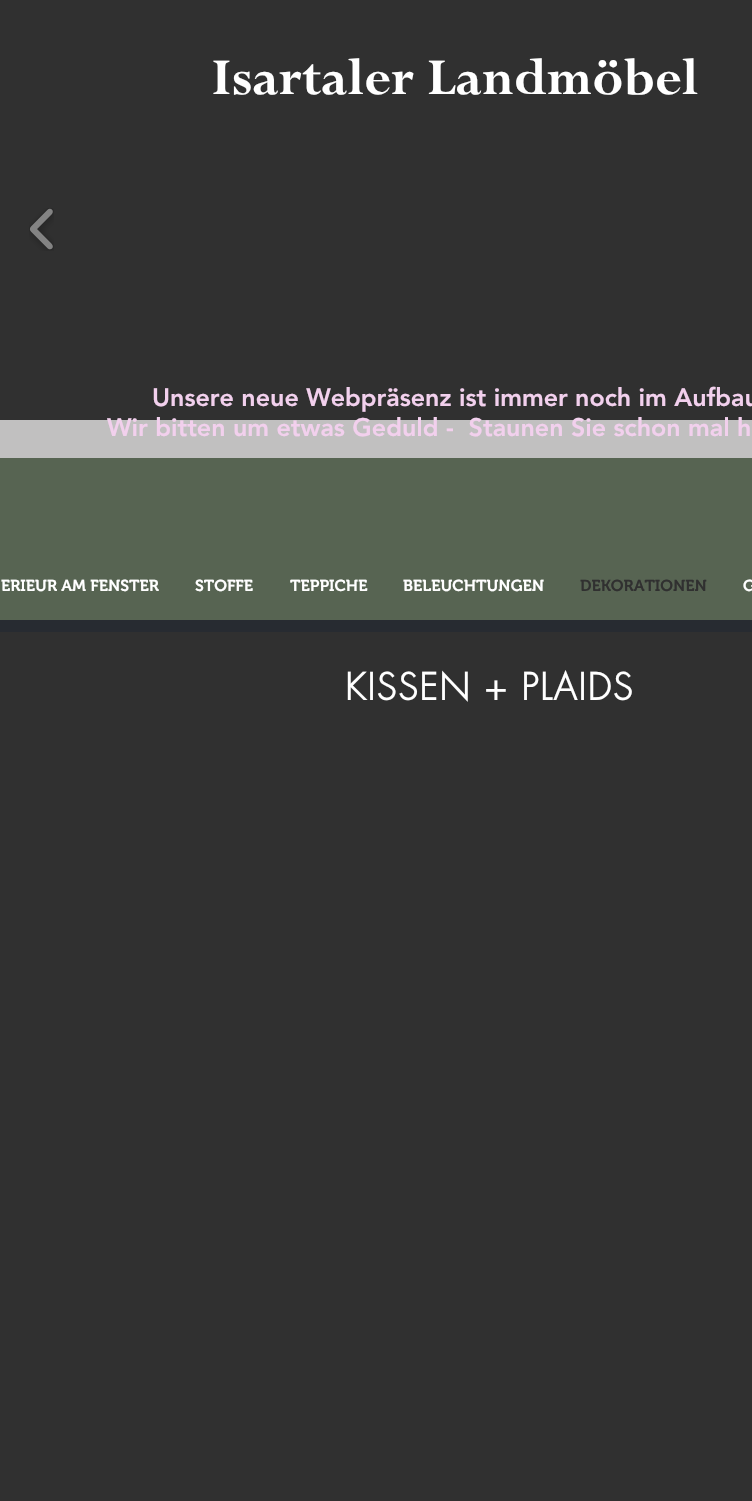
static SkFont makeFont(const char* family, int weight, float size, bool italic = false) {
  SkFontStyle style(weight, SkFontStyle::kNormal_Width,
    italic ? SkFontStyle::kItalic_Slant : SkFontStyle::kUpright_Slant);
  SkFont result(fontMgr->matchFamilyStyle(family, style), size);
  result.setSubpixel(true);
  return result;
}

static void text(SkCanvas* c, const char* s, float x, float y, const SkFont& font, SkColor color) {
  SkPaint ink(SkColor4f::FromColor(color));
  ink.setAntiAlias(true);
  c->drawString(s, x, y, font, ink);
}

static void spacedText(SkCanvas* c, const char* s, float x, float y, const SkFont& font, const SkPaint& ink, float letter, float word) {
  std::vector<SkGlyphID> glyphs(font.countText(s, strlen(s), SkTextEncoding::kUTF8));
  std::vector<float> xs(glyphs.size());
  font.textToGlyphs(s, strlen(s), SkTextEncoding::kUTF8, glyphs);
  font.getXPos(glyphs, xs, x);
  float extra = 0;
  for (size_t i = 0; i < glyphs.size(); i++) {
    xs[i] += extra;
    extra += letter + word * (glyphs[i] == font.unicharToGlyph(' '));
  }
  c->drawTextBlob(SkTextBlob::MakeFromPosHGlyphs(glyphs, xs, y, font), 0, 0, ink);
}

static void box(SkCanvas* c, float l, float t, float r, float b, SkColor color) {
  SkPaint ink(SkColor4f::FromColor(color));
  ink.setAntiAlias(true);
  c->drawRect(SkRect::MakeLTRB(l, t, r, b), ink);
}

static void picture(SkCanvas* c, const char* path, float l, float t, float r, float b) {
  auto image = SkImages::DeferredFromEncodedData(SkData::MakeFromFileName(path));
  c->drawImageRect(image, SkRect::MakeLTRB(l, t, r, b), SkSamplingOptions());
}

void draw(SkCanvas* c) {
  SkPaint paint;
  paint.setAntiAlias(true);
  c->clear(0xff303030);
  SkFont face1 = makeFont("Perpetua", 700, 57);
  text(c, "Isartaler Landmöbel", 211, 94, face1, 0xffffffff);
  picture(c, "img_01.png", 29, 208, 54, 251);
  box(c, 0, 420, 752, 458, 0xffc1c0c0);
  SkFont face2 = makeFont("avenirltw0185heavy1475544", 900, 25);
  text(c, "Unsere neue Webpräsenz ist immer noch im Aufbau", 152, 406, face2, 0xfff2d0ed);
  text(c, "Wir bitten um etwas Geduld -  Staunen Sie schon mal h", 107, 436, face2, 0xfff2d0ed);
  box(c, 0, 458, 752, 620, 0xff576452);
  SkFont face3 = makeFont("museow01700", 600, 16);
  text(c, "ERIEUR AM FENSTER", 1, 591, face3, 0xffffffff);
  text(c, "STOFFE", 195, 591, face3, 0xffffffff);
  text(c, "TEPPICHE", 290, 591, face3, 0xffffffff);
  text(c, "BELEUCHTUNGEN", 403, 591, face3, 0xffffffff);
  text(c, "DEKORATIONEN", 580, 591, face3, 0xff303030);
  text(c, "G", 743, 591, face3, 0xffffffff);
  box(c, 0, 620, 752, 632, 0xff272b31);
  SkFont face4 = makeFont("futura", 700, 36);
  paint.setColor(0xffffffff);
  spacedText(c, "KISSEN + PLAIDS", 345, 700, face4, paint, 1.75f, 0);
}
